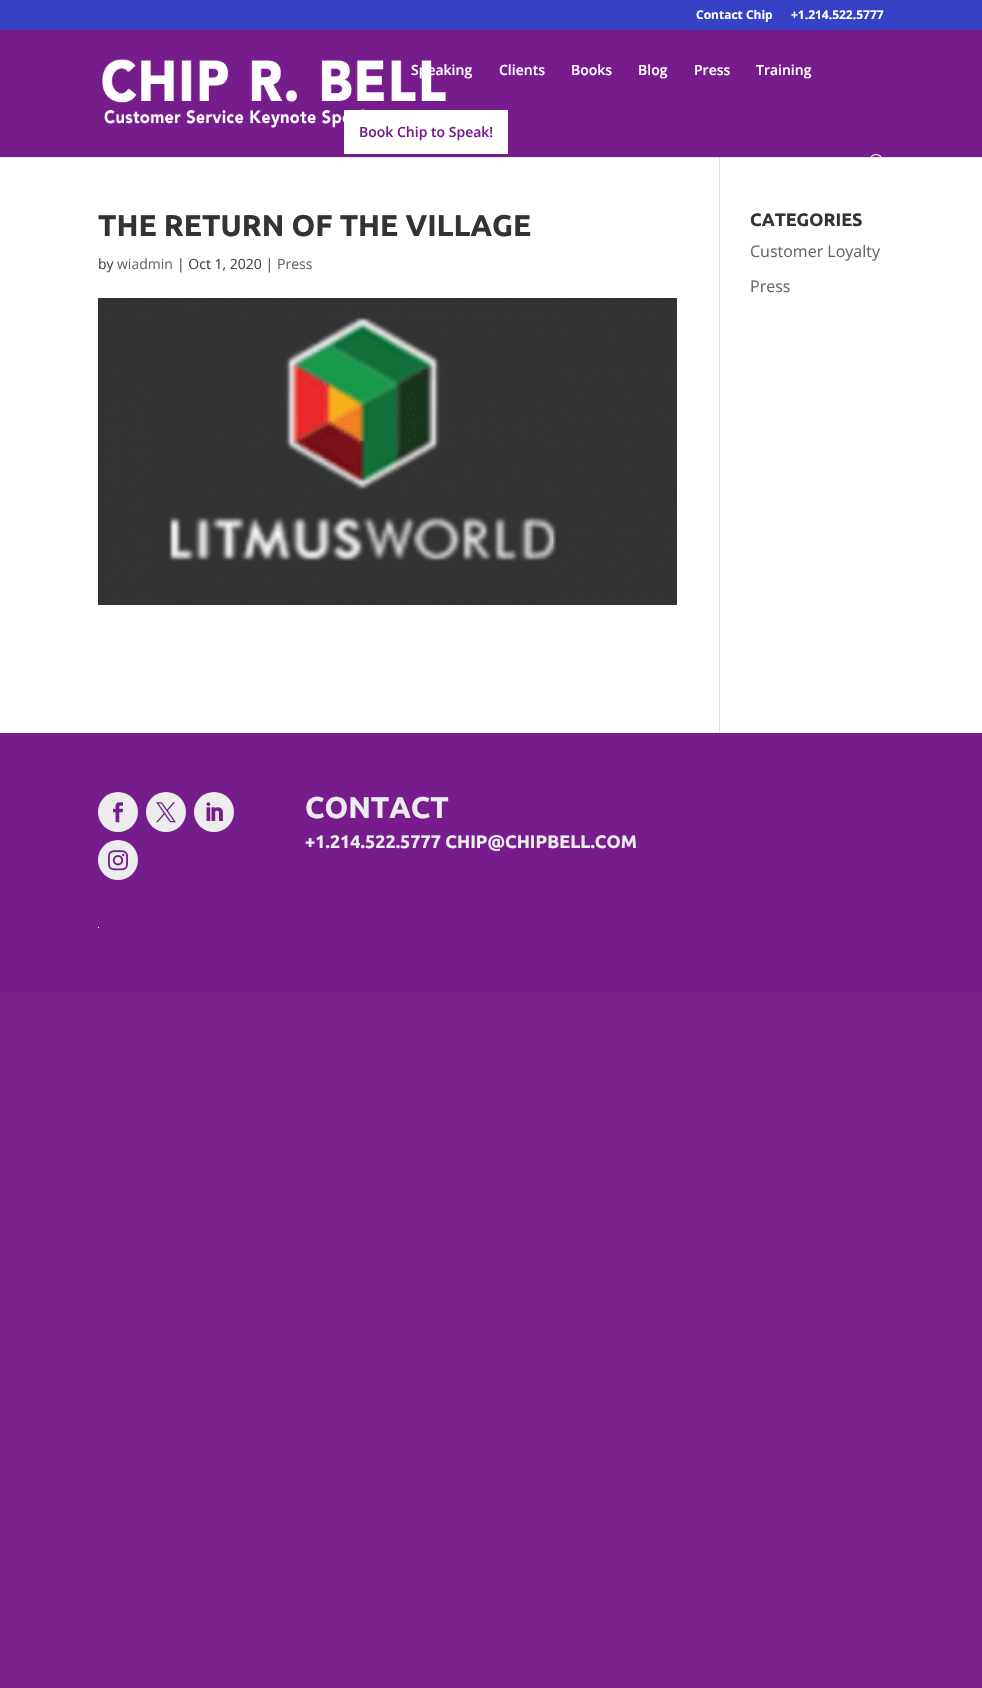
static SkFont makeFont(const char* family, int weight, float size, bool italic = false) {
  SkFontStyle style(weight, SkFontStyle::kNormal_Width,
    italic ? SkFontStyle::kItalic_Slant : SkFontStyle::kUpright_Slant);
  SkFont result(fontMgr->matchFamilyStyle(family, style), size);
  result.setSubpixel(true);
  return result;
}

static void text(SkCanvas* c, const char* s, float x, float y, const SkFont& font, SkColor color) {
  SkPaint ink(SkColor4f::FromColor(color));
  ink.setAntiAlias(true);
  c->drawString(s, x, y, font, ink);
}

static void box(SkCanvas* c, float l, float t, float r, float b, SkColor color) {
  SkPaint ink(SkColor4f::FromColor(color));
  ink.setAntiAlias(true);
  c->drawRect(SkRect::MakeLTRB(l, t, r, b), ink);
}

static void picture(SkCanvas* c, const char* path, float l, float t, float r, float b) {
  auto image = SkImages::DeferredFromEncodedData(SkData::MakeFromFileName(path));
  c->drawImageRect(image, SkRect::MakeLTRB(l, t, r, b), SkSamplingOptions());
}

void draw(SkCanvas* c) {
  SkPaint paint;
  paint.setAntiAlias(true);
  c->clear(0xff761f89);
  box(c, 0, 0, 982, 30, 0xff3642c6);
  SkFont face1 = makeFont("Open Sans", 700, 12);
  text(c, "Contact Chip", 696, 19, face1, 0xffffffff);
  text(c, "+1.214.522.5777", 791, 19, face1, 0xffffffff);
  box(c, 0, 158, 982, 733, 0xffffffff);
  box(c, 0, 157, 982, 158, 0xffe6e6e6);
  box(c, 719, 152, 720, 733, 0xffe2e2e2);
  box(c, 0, 30, 982, 157, 0xff761c8c);
  picture(c, "img_01.png", 102, 59, 446, 128);
  SkFont face2 = makeFont("Open Sans", 600, 14);
  text(c, "Speaking", 411, 75, face2, 0xffffffff);
  text(c, "Clients", 499, 75, face2, 0xffffffff);
  text(c, "Books", 571, 75, face2, 0xffffffff);
  text(c, "Blog", 638, 75, face2, 0xffffffff);
  text(c, "Press", 694, 75, face2, 0xffffffff);
  text(c, "Training", 756, 75, face2, 0xffffffff);
  box(c, 344, 110, 508, 154, 0xffffffff);
  text(c, "Book Chip to Speak!", 359, 137, face2, 0xff761c8c);
  picture(c, "img_02.png", 870, 154, 882, 158);
  box(c, 719, 157, 720, 158, 0xffcbcbcb);
  SkFont face3 = makeFont("Ubuntu", 700, 30);
  text(c, "THE RETURN OF THE VILLAGE", 98, 236, face3, 0xff333333);
  SkFont face4 = makeFont("Open Sans", 400, 14);
  text(c, "by", 98, 269, face4, 0xff444444);
  text(c, "wiadmin", 117, 269, face4, 0xff666666);
  text(c, "| Oct 1, 2020 |", 177, 269, face4, 0xff444444);
  text(c, "Press", 277, 269, face4, 0xff666666);
  picture(c, "img_03.png", 98, 298, 677, 605);
  SkFont face5 = makeFont("Ubuntu", 700, 18);
  text(c, "CATEGORIES", 750, 226, face5, 0xff333333);
  SkFont face6 = makeFont("Open Sans", 400, 16);
  text(c, "Customer Loyalty", 750, 257, face6, 0xff666666);
  text(c, "Press", 750, 292, face6, 0xff666666);
  box(c, 0, 733, 982, 996, 0xff761c8c);
  paint.setColor(0xffececec);
  c->drawCircle(118, 812, 20, paint);
  picture(c, "img_04.png", 113, 802, 123, 823);
  c->drawCircle(166, 812, 20, paint);
  picture(c, "img_05.png", 156, 802, 176, 823);
  c->drawCircle(214, 812, 20, paint);
  picture(c, "img_06.png", 206, 802, 223, 821);
  c->drawCircle(118, 860, 20, paint);
  picture(c, "img_07.png", 108, 850, 128, 871);
  box(c, 98, 927, 99, 928, 0xffffffff);
  text(c, "CONTACT", 305, 818, face3, 0xffececec);
  text(c, "+1.214.522.5777 CHIP@CHIPBELL.COM", 305, 848, face5, 0xffececec);
}
